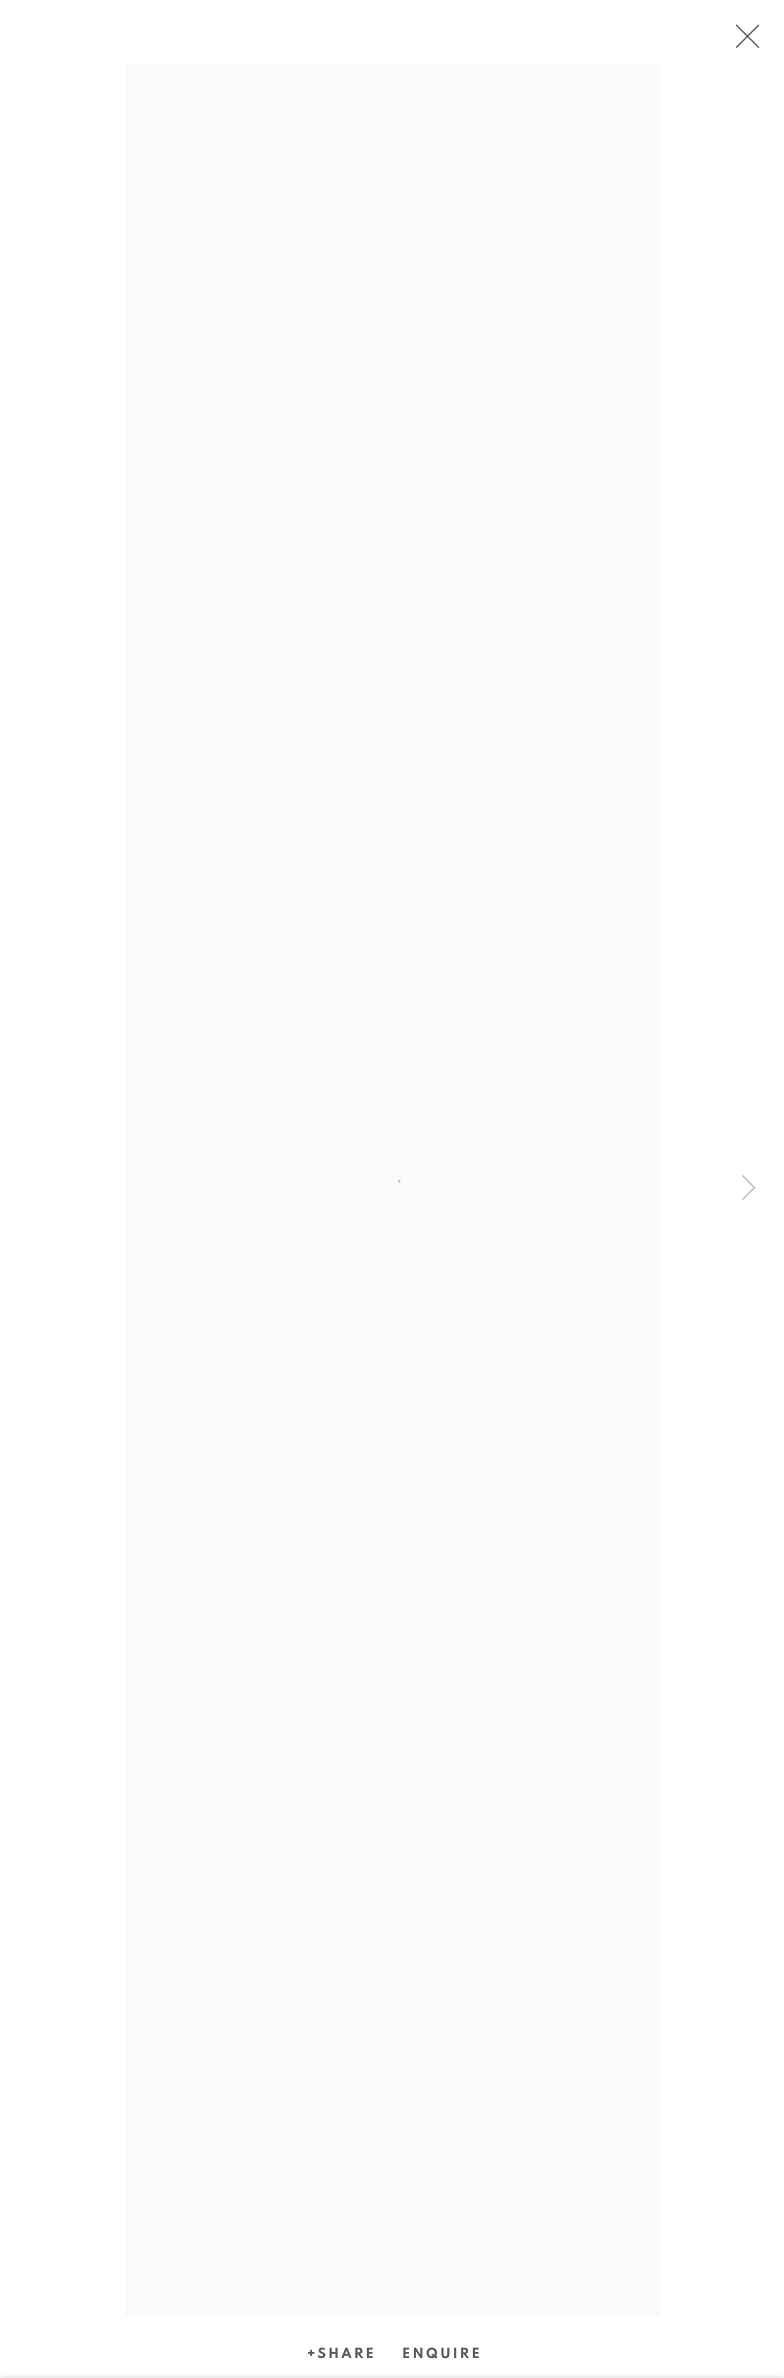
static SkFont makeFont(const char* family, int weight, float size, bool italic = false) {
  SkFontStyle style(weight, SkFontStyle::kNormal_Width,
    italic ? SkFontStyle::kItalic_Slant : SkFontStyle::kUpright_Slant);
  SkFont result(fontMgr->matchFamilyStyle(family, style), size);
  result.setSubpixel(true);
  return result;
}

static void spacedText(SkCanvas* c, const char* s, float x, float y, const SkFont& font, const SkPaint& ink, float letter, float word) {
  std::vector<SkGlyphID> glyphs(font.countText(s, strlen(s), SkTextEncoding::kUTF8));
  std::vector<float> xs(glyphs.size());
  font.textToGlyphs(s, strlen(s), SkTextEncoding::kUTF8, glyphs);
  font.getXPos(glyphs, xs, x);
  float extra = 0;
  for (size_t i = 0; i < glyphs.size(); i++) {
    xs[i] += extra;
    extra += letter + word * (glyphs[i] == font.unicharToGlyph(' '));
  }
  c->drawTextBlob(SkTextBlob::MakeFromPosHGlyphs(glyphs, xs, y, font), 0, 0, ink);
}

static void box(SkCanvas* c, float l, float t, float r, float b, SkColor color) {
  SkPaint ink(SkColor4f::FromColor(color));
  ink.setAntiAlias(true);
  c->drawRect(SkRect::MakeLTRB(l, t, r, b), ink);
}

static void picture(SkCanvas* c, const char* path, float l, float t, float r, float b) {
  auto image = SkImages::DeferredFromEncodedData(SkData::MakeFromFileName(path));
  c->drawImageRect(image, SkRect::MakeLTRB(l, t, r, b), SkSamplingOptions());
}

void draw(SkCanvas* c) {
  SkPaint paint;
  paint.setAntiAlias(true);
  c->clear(0xffffffff);
  picture(c, "img_01.png", 735, 24, 760, 49);
  paint.setColor(0xffb9b9b9);
  c->drawPath(SkPathBuilder().moveTo(755.5f, 1187.5f).lineTo(743, 1175).lineTo(742, 1176).lineTo(753.5f, 1187.5f).lineTo(742, 1199).lineTo(743, 1200).close().detach(), paint);
  box(c, 125, 63, 660, 2316, 0xfffafafa);
  paint.setStyle(SkPaint::kStroke_Style);
  paint.setStrokeWidth(2.2f);
  paint.setStrokeCap(SkPaint::kRound_Cap);
  paint.setColor(0xffbbbbbb);
  c->drawPath(SkPathBuilder().moveTo(399, 1181).lineTo(399.5f, 1181.5f).detach(), paint);
  SkFont face1 = makeFont("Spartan", 700, 14.5f);
  paint.setStyle(SkPaint::kFill_Style);
  paint.setColor(0xff585858);
  spacedText(c, "+SHARE", 307, 2358, face1, paint, 2.25f, 0);
  spacedText(c, "ENQUIRE", 402, 2358, face1, paint, 2.25f, 0);
  paint.setColor(0x3b000000);
  paint.setMaskFilter(SkMaskFilter::MakeBlur(kNormal_SkBlurStyle, 3));
  c->drawRect(SkRect::MakeLTRB(0, 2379, 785, 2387), paint);
  paint.setMaskFilter(nullptr);
}
